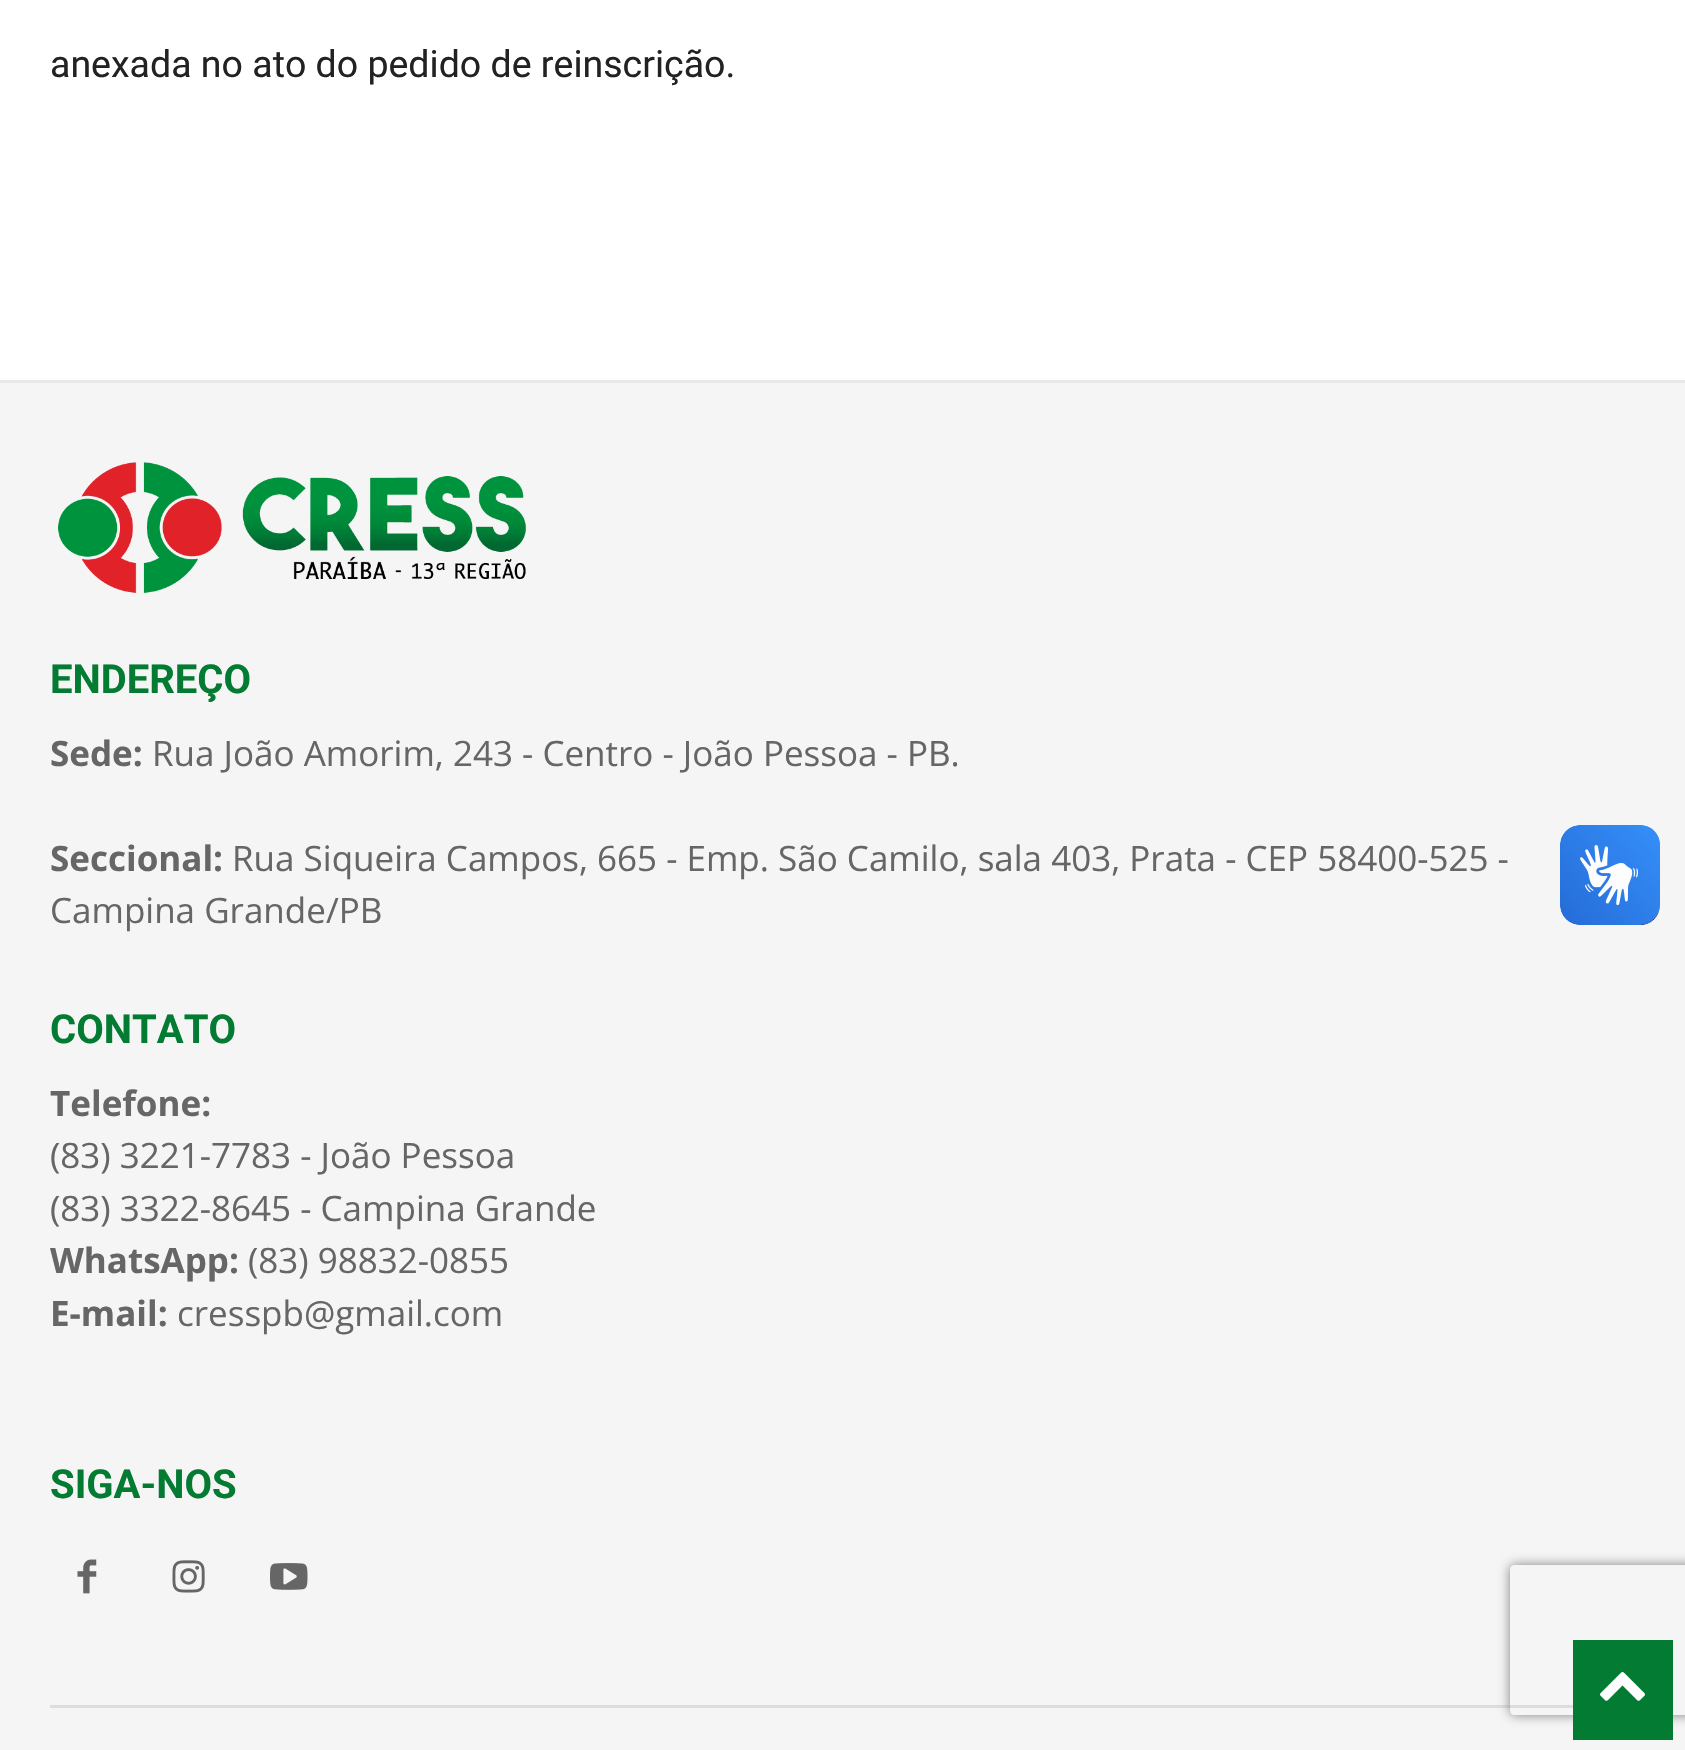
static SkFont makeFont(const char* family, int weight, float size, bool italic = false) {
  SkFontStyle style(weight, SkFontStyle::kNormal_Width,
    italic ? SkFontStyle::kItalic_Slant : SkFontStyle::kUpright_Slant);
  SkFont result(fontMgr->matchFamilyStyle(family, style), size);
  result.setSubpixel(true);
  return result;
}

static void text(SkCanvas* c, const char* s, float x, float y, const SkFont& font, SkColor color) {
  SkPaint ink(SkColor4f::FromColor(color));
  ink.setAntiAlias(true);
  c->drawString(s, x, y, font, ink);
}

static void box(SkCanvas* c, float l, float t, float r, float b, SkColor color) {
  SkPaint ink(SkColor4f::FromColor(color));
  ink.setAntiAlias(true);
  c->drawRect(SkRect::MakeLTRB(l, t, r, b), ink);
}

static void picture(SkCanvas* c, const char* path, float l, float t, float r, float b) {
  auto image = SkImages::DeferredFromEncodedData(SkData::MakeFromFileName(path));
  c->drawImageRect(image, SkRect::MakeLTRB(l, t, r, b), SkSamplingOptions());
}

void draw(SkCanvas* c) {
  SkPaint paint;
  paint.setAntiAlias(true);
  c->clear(0xffffffff);
  SkFont face1 = makeFont("Roboto", 400, 37.5f);
  text(c, "anexada no ato do pedido de reinscrição.", 50, 77, face1, 0xff222222);
  box(c, 0, 383, 1685, 1750, 0xfff5f5f5);
  box(c, 0, 380, 1685, 383, 0xffe8e8e8);
  picture(c, "img_01.png", 58, 462, 527, 593);
  SkFont face2 = makeFont("Roboto", 700, 40);
  text(c, "ENDEREÇO", 50, 693, face2, 0xff047b32);
  SkFont face3 = makeFont("Open Sans", 700, 35);
  text(c, "Sede:", 50, 766, face3, 0xff666666);
  SkFont face4 = makeFont("Open Sans", 400, 35);
  text(c, "Rua João Amorim, 243 - Centro - João Pessoa - PB.", 152, 766, face4, 0xff666666);
  text(c, "Seccional:", 50, 871, face3, 0xff666666);
  text(c, "Rua Siqueira Campos, 665 - Emp. São Camilo, sala 403, Prata - CEP 58400-525 -", 232, 871, face4, 0xff666666);
  text(c, "Campina Grande/PB", 50, 923, face4, 0xff666666);
  text(c, "CONTATO", 50, 1043, face2, 0xff047b32);
  text(c, "Telefone:", 50, 1116, face3, 0xff666666);
  text(c, "(83) 3221-7783 - João Pessoa", 50, 1168, face4, 0xff666666);
  text(c, "(83) 3322-8645 - Campina Grande", 50, 1221, face4, 0xff666666);
  text(c, "WhatsApp:", 50, 1273, face3, 0xff666666);
  text(c, "(83) 98832-0855", 248, 1273, face4, 0xff666666);
  text(c, "E-mail:", 50, 1326, face3, 0xff666666);
  text(c, "cresspb@gmail.com", 177, 1326, face4, 0xff666666);
  text(c, "SIGA-NOS", 50, 1498, face2, 0xff047b32);
  picture(c, "img_02.png", 77, 1559, 97, 1594);
  picture(c, "img_03.png", 172, 1560, 205, 1593);
  picture(c, "img_04.png", 270, 1563, 308, 1590);
  box(c, 50, 1705, 1573, 1708, 0xffdddddd);
  picture(c, "img_05.png", 1560, 825, 1660, 925);
  picture(c, "img_06.png", 1560, 825, 1660, 925);
  c->save();
  c->clipPath(SkPathBuilder(SkPathFillType::kEvenOdd).moveTo(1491, 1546).lineTo(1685, 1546).lineTo(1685, 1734).lineTo(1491, 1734).close().moveTo(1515, 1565).lineTo(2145, 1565).cubicTo(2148, 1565, 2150, 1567, 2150, 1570).lineTo(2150, 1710).cubicTo(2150, 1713, 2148, 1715, 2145, 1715).lineTo(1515, 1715).cubicTo(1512, 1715, 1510, 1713, 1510, 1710).lineTo(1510, 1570).cubicTo(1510, 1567, 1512, 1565, 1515, 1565).close().detach(), true);
  paint.setColor(0xff808080);
  paint.setMaskFilter(SkMaskFilter::MakeBlur(kNormal_SkBlurStyle, 6));
  c->drawRoundRect(SkRect::MakeLTRB(1510, 1565, 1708, 1715), 5, 5, paint);
  paint.setMaskFilter(nullptr);
  c->restore();
  box(c, 1573, 1640, 1673, 1740, 0xff047b32);
  picture(c, "img_07.png", 1600, 1672, 1645, 1701);
}
